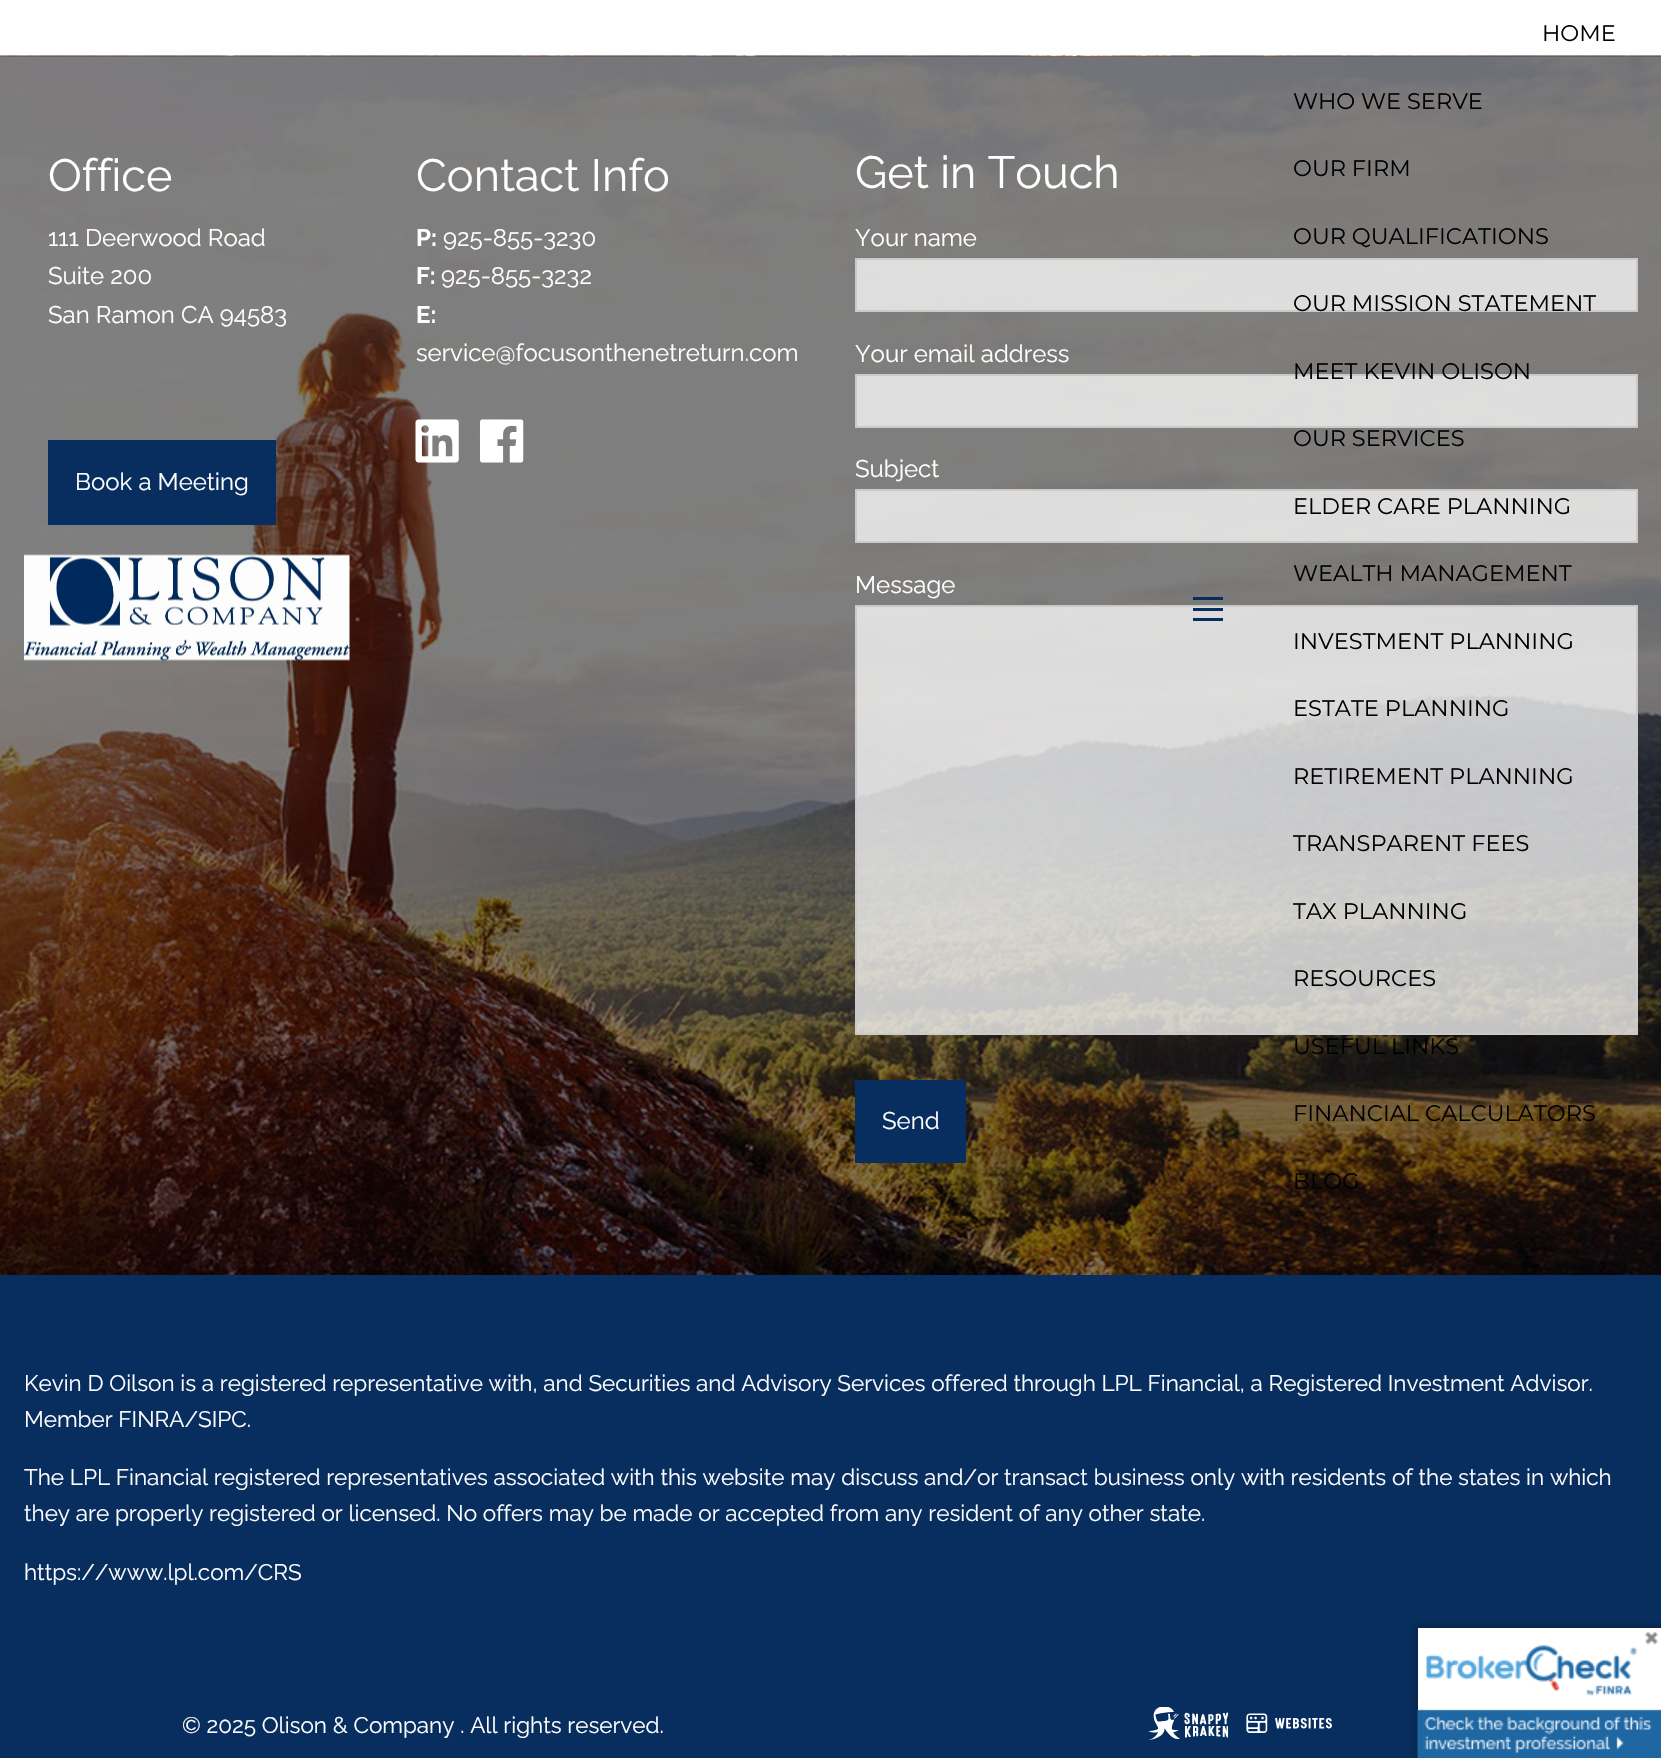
static SkFont makeFont(const char* family, int weight, float size, bool italic = false) {
  SkFontStyle style(weight, SkFontStyle::kNormal_Width,
    italic ? SkFontStyle::kItalic_Slant : SkFontStyle::kUpright_Slant);
  SkFont result(fontMgr->matchFamilyStyle(family, style), size);
  result.setSubpixel(true);
  return result;
}

static void text(SkCanvas* c, const char* s, float x, float y, const SkFont& font, SkColor color) {
  SkPaint ink(SkColor4f::FromColor(color));
  ink.setAntiAlias(true);
  c->drawString(s, x, y, font, ink);
}

static void box(SkCanvas* c, float l, float t, float r, float b, SkColor color) {
  SkPaint ink(SkColor4f::FromColor(color));
  ink.setAntiAlias(true);
  c->drawRect(SkRect::MakeLTRB(l, t, r, b), ink);
}

static void picture(SkCanvas* c, const char* path, float l, float t, float r, float b) {
  auto image = SkImages::DeferredFromEncodedData(SkData::MakeFromFileName(path));
  c->drawImageRect(image, SkRect::MakeLTRB(l, t, r, b), SkSamplingOptions());
}

void draw(SkCanvas* c) {
  SkPaint paint;
  paint.setAntiAlias(true);
  c->clear(0xffffffff);
  picture(c, "img_02.png", 0, 55, 1661, 1275);
  picture(c, "img_01.png", 24, 554, 350, 661);
  paint.setColor(0xbffefefe);
  c->drawRect(SkRect::MakeLTRB(856, 606, 1637, 1034), paint);
  paint.setStyle(SkPaint::kStroke_Style);
  paint.setStrokeWidth(2);
  paint.setColor(0xffcacaca);
  c->drawRect(SkRect::MakeLTRB(856, 606, 1637, 1034), paint);
  box(c, 1193, 618, 1223, 621, 0xff072e5e);
  box(c, 1193, 608, 1223, 611, 0xff072e5e);
  box(c, 1193, 597, 1223, 600, 0xff072e5e);
  SkFont face1 = makeFont("Montserrat", 100, 22.5f);
  text(c, "HOME", 1542, 41, face1, 0xff000000);
  text(c, "WHO WE SERVE", 1293, 109, face1, 0xff000000);
  text(c, "OUR FIRM", 1293, 176, face1, 0xff000000);
  text(c, "OUR QUALIFICATIONS", 1293, 244, face1, 0xff000000);
  paint.setStyle(SkPaint::kFill_Style);
  paint.setColor(0xbffefefe);
  c->drawRect(SkRect::MakeLTRB(856, 259, 1637, 311), paint);
  paint.setStyle(SkPaint::kStroke_Style);
  paint.setColor(0xffcacaca);
  c->drawRect(SkRect::MakeLTRB(856, 259, 1637, 311), paint);
  text(c, "OUR MISSION STATEMENT", 1293, 311, face1, 0xff000000);
  paint.setStyle(SkPaint::kFill_Style);
  paint.setColor(0xbffefefe);
  c->drawRect(SkRect::MakeLTRB(856, 375, 1637, 427), paint);
  paint.setStyle(SkPaint::kStroke_Style);
  paint.setColor(0xffcacaca);
  c->drawRect(SkRect::MakeLTRB(856, 375, 1637, 427), paint);
  text(c, "MEET KEVIN OLISON", 1293, 379, face1, 0xff000000);
  text(c, "OUR SERVICES", 1293, 446, face1, 0xff000000);
  paint.setStyle(SkPaint::kFill_Style);
  paint.setColor(0xbffefefe);
  c->drawRect(SkRect::MakeLTRB(856, 490, 1637, 542), paint);
  paint.setStyle(SkPaint::kStroke_Style);
  paint.setColor(0xffcacaca);
  c->drawRect(SkRect::MakeLTRB(856, 490, 1637, 542), paint);
  text(c, "ELDER CARE PLANNING", 1293, 514, face1, 0xff000000);
  text(c, "WEALTH MANAGEMENT", 1293, 581, face1, 0xff000000);
  text(c, "INVESTMENT PLANNING", 1293, 649, face1, 0xff000000);
  text(c, "ESTATE PLANNING", 1293, 716, face1, 0xff000000);
  text(c, "RETIREMENT PLANNING", 1293, 784, face1, 0xff000000);
  text(c, "TRANSPARENT FEES", 1293, 851, face1, 0xff000000);
  text(c, "TAX PLANNING", 1293, 919, face1, 0xff000000);
  text(c, "RESOURCES", 1293, 986, face1, 0xff000000);
  text(c, "USEFUL LINKS", 1293, 1054, face1, 0xff000000);
  text(c, "FINANCIAL CALCULATORS", 1293, 1121, face1, 0xff000000);
  text(c, "BLOG", 1293, 1189, face1, 0xff000000);
  SkFont face2 = makeFont("Raleway", 100, 45);
  text(c, "Office", 48, 191, face2, 0xffffffff);
  SkFont face3 = makeFont("Raleway", 100, 24);
  text(c, "111 Deerwood Road", 48, 246, face3, 0xffffffff);
  text(c, "Suite 200", 48, 284, face3, 0xffffffff);
  text(c, "San Ramon CA 94583", 48, 323, face3, 0xffffffff);
  box(c, 48, 440, 276, 525, 0xff072e5e);
  text(c, "Book a Meeting", 75, 490, face3, 0xffffffff);
  text(c, "Contact Info", 416, 191, face2, 0xffffffff);
  SkFont face4 = makeFont("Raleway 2", 100, 24);
  text(c, "P:", 416, 246, face4, 0xffffffff);
  text(c, "925-855-3230", 443, 246, face3, 0xffffffff);
  text(c, "F:", 416, 284, face4, 0xffffffff);
  text(c, "925-855-3232", 441, 284, face3, 0xffffffff);
  text(c, "E:", 416, 323, face4, 0xffffffff);
  text(c, "service@focusonthenetreturn.com", 416, 361, face3, 0xffffffff);
  picture(c, "img_03.png", 415, 419, 459, 463);
  picture(c, "img_04.png", 480, 419, 524, 463);
  text(c, "Get in Touch", 855, 188, face2, 0xffffffff);
  text(c, "Your name", 855, 246, face3, 0xffffffff);
  text(c, "Your email address", 855, 362, face3, 0xffffffff);
  text(c, "Subject", 855, 477, face3, 0xffffffff);
  text(c, "Message", 855, 593, face3, 0xffffffff);
  box(c, 855, 1080, 966, 1163, 0xff072e5e);
  text(c, "Send", 882, 1129, face3, 0xffffffff);
  box(c, 0, 1275, 1661, 1680, 0xff072e5e);
  SkFont face5 = makeFont("Raleway", 100, 22.5f);
  text(c, "Kevin D Oilson is a registered representative with, and Securities and Advisory Services offered through LPL Financial, a Registered Investment Advisor.", 24, 1391, face5, 0xffffffff);
  text(c, "Member FINRA/SIPC.", 24, 1427, face5, 0xffffffff);
  text(c, "The LPL Financial registered representatives associated with this website may discuss and/or transact business only with residents of the states in which", 24, 1485, face5, 0xffffffff);
  text(c, "they are properly registered or licensed. No offers may be made or accepted from any resident of any other state.", 24, 1521, face5, 0xffffffff);
  text(c, "https://www.lpl.com/CRS", 24, 1580, face5, 0xffffffff);
  box(c, 0, 1680, 1418, 1758, 0xff072e5e);
  text(c, "© 2025 Olison & Company . All rights reserved.", 182, 1733, face5, 0xffffffff);
  picture(c, "img_05.png", 1148, 1707, 1332, 1740);
  box(c, 1418, 1628, 1661, 1680, 0xffffffff);
  c->save();
  c->clipPath(SkPathBuilder(SkPathFillType::kEvenOdd).moveTo(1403, 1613).lineTo(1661, 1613).lineTo(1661, 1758).lineTo(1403, 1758).close().moveTo(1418, 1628).lineTo(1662, 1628).lineTo(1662, 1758).lineTo(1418, 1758).close().detach(), true);
  paint.setStyle(SkPaint::kFill_Style);
  paint.setColor(0x40000000);
  paint.setMaskFilter(SkMaskFilter::MakeBlur(kNormal_SkBlurStyle, 4));
  c->drawRect(SkRect::MakeLTRB(1416, 1626, 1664, 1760), paint);
  paint.setMaskFilter(nullptr);
  c->restore();
  picture(c, "img_06.png", 1417, 1631, 1661, 1758);
}
